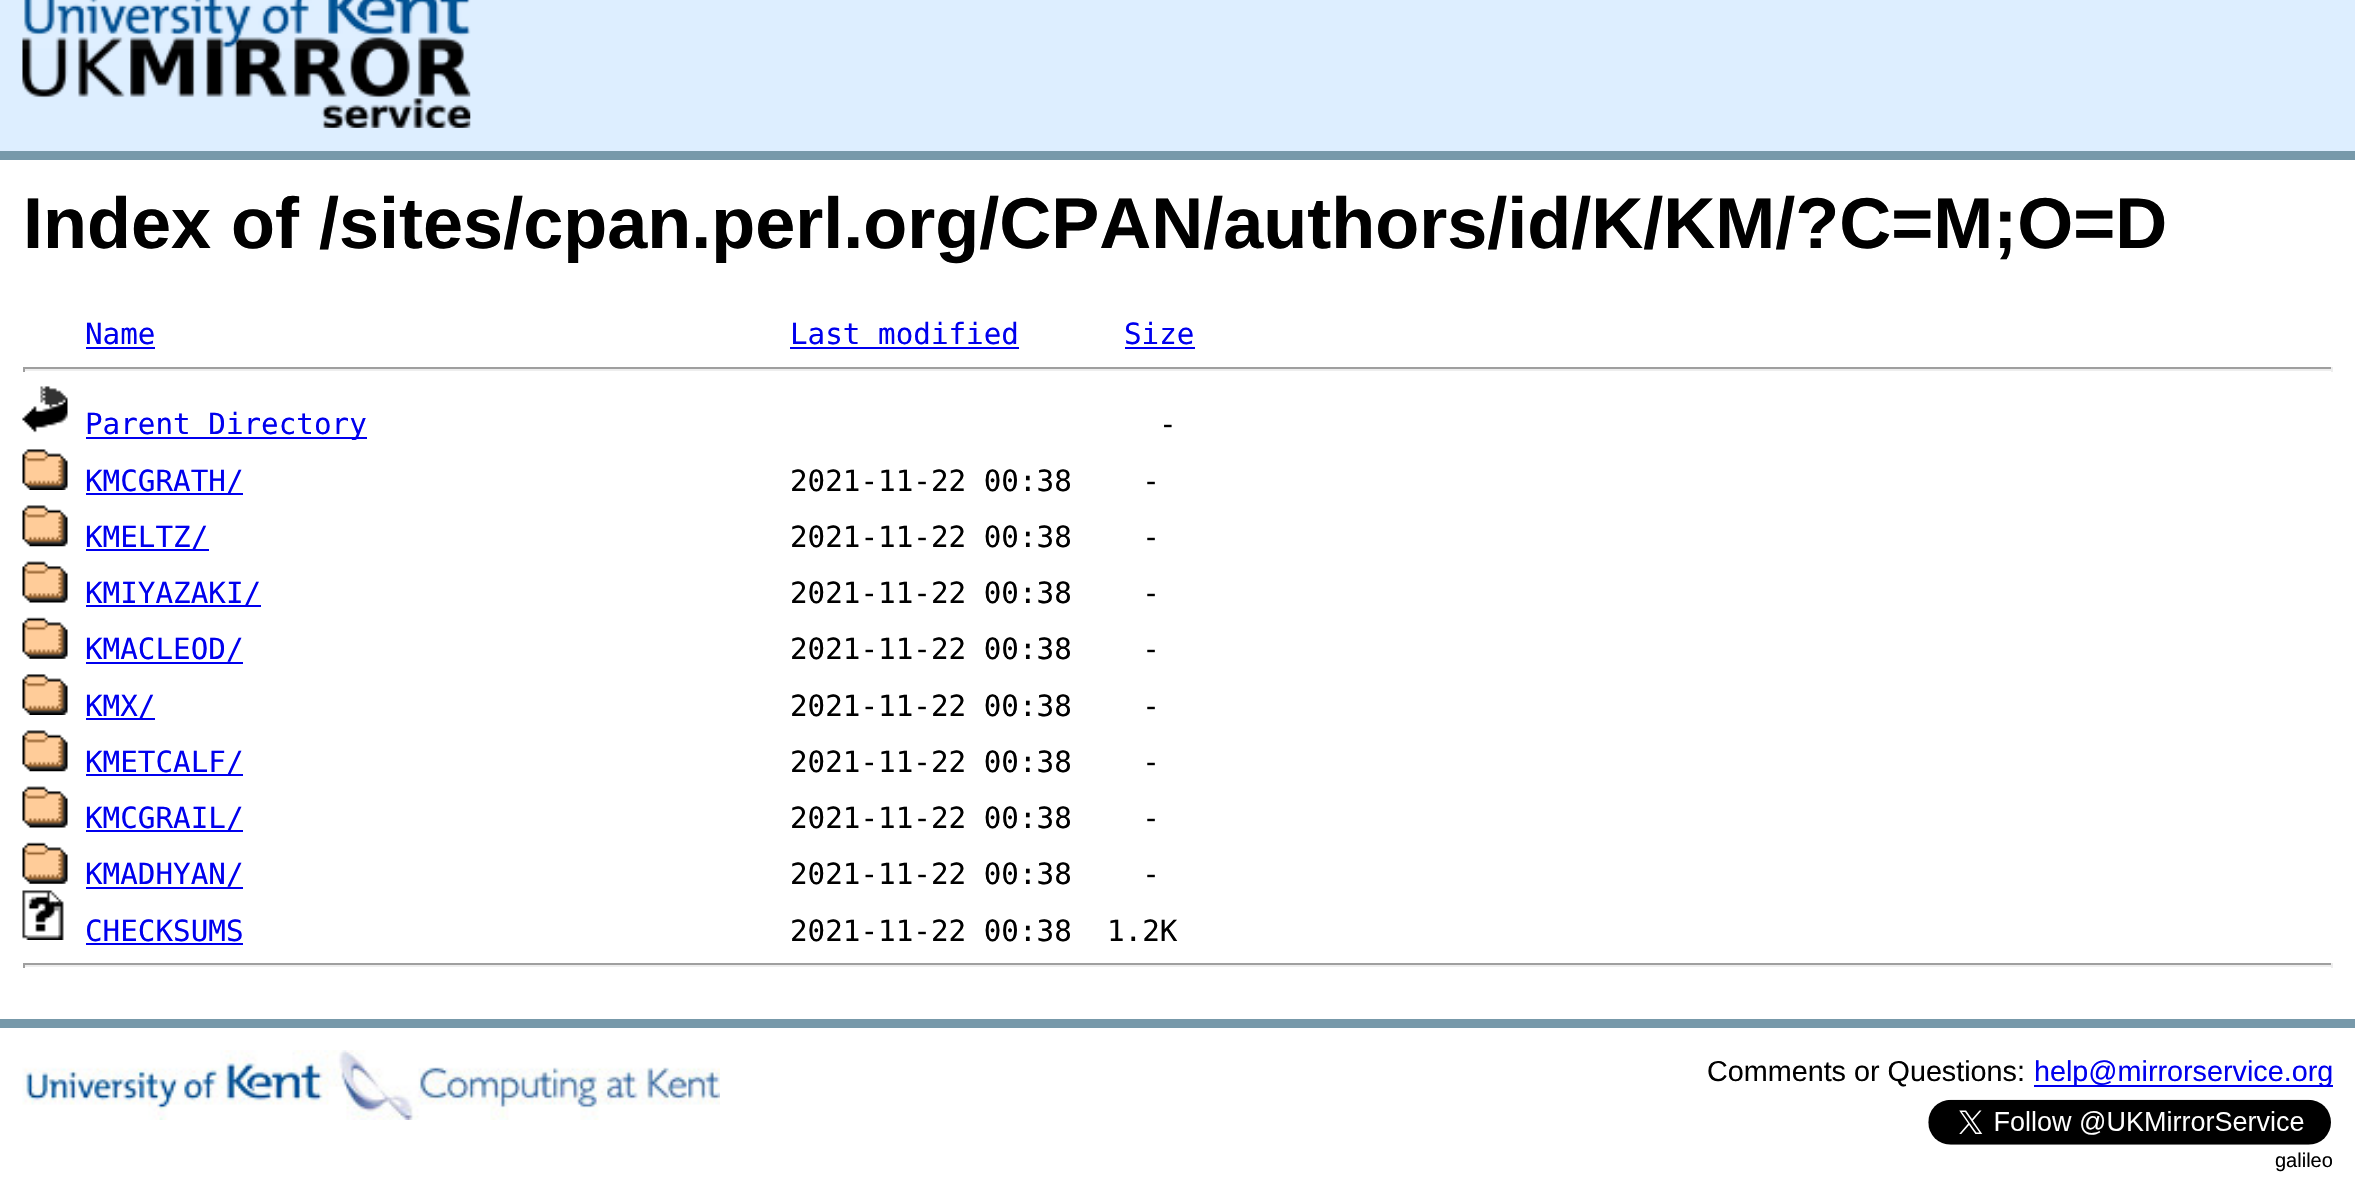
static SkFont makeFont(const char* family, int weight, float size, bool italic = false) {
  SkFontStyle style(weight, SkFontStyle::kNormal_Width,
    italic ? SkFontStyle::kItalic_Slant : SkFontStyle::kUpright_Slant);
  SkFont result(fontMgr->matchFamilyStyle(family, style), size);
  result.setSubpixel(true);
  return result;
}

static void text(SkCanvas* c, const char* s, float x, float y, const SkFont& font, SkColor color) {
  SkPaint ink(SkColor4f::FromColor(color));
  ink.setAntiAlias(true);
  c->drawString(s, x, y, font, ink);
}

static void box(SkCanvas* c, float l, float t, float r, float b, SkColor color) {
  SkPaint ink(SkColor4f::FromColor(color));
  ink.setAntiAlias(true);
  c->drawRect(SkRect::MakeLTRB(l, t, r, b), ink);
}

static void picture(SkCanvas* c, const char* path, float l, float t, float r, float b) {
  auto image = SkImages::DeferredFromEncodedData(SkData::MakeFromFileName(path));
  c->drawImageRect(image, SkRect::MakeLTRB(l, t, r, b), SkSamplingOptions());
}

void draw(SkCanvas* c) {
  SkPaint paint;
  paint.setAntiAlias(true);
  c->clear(0xffffffff);
  box(c, 0, 0, 2355, 151, 0xffddeeff);
  box(c, 0, 151, 2355, 160, 0xff7799aa);
  picture(c, "img_01.png", 22, 0, 471, 128);
  SkFont face1 = makeFont("Liberation Sans", 700, 72);
  text(c, "Index of /sites/cpan.perl.org/CPAN/authors/id/K/KM/?C=M;O=D", 23, 248, face1, 0xff000000);
  SkFont face2 = makeFont("DejaVu Sans Mono", 400, 29.25f);
  text(c, "Name", 85, 344, face2, 0xff0000ee);
  box(c, 86, 347, 155, 349, 0xff0000ee);
  text(c, "Last modified", 790, 344, face2, 0xff0000ee);
  box(c, 790, 347, 1019, 349, 0xff0000ee);
  text(c, "Size", 1124, 344, face2, 0xff0000ee);
  box(c, 1125, 347, 1195, 349, 0xff0000ee);
  box(c, 23, 367, 2333, 369, 0xff9f9f9f);
  box(c, 2331, 367, 2333, 372, 0xffeeeeee);
  box(c, 23, 369, 2333, 371, 0xffeeeeee);
  box(c, 23, 367, 25, 372, 0xff9f9f9f);
  picture(c, "img_02.png", 22, 386, 68, 433);
  box(c, 86, 437, 367, 439, 0xff0000ee);
  text(c, "Parent Directory", 85, 434, face2, 0xff0000ee);
  text(c, "-", 1159, 434, face2, 0xff000000);
  picture(c, "img_03.png", 22, 449, 68, 490);
  box(c, 86, 493, 243, 495, 0xff0000ee);
  text(c, "KMCGRATH/", 85, 491, face2, 0xff0000ee);
  text(c, "2021-11-22 00:38    -", 790, 491, face2, 0xff000000);
  picture(c, "img_04.png", 22, 505, 68, 547);
  box(c, 86, 549, 209, 551, 0xff0000ee);
  text(c, "KMELTZ/", 85, 547, face2, 0xff0000ee);
  text(c, "2021-11-22 00:38    -", 790, 547, face2, 0xff000000);
  picture(c, "img_05.png", 22, 561, 68, 603);
  box(c, 86, 605, 261, 607, 0xff0000ee);
  text(c, "KMIYAZAKI/", 85, 603, face2, 0xff0000ee);
  text(c, "2021-11-22 00:38    -", 790, 603, face2, 0xff000000);
  picture(c, "img_06.png", 22, 617, 68, 659);
  text(c, "KMACLEOD/", 85, 659, face2, 0xff0000ee);
  box(c, 86, 662, 243, 664, 0xff0000ee);
  text(c, "2021-11-22 00:38    -", 790, 659, face2, 0xff000000);
  picture(c, "img_03.png", 22, 674, 68, 715);
  box(c, 86, 718, 155, 720, 0xff0000ee);
  text(c, "KMX/", 85, 716, face2, 0xff0000ee);
  text(c, "2021-11-22 00:38    -", 790, 716, face2, 0xff000000);
  picture(c, "img_04.png", 22, 730, 68, 772);
  box(c, 86, 774, 243, 776, 0xff0000ee);
  text(c, "KMETCALF/", 85, 772, face2, 0xff0000ee);
  text(c, "2021-11-22 00:38    -", 790, 772, face2, 0xff000000);
  picture(c, "img_07.png", 22, 786, 68, 828);
  box(c, 86, 830, 243, 832, 0xff0000ee);
  text(c, "KMCGRAIL/", 85, 828, face2, 0xff0000ee);
  text(c, "2021-11-22 00:38    -", 790, 828, face2, 0xff000000);
  picture(c, "img_06.png", 22, 842, 68, 884);
  text(c, "KMADHYAN/", 85, 884, face2, 0xff0000ee);
  box(c, 86, 887, 243, 889, 0xff0000ee);
  text(c, "2021-11-22 00:38    -", 790, 884, face2, 0xff000000);
  picture(c, "img_08.png", 22, 890, 64, 940);
  text(c, "CHECKSUMS", 85, 941, face2, 0xff0000ee);
  box(c, 86, 943, 243, 945, 0xff0000ee);
  text(c, "2021-11-22 00:38  1.2K", 790, 941, face2, 0xff000000);
  box(c, 23, 963, 2333, 965, 0xff9f9f9f);
  box(c, 2331, 963, 2333, 968, 0xffeeeeee);
  box(c, 23, 965, 2333, 967, 0xffeeeeee);
  box(c, 23, 963, 25, 968, 0xff9f9f9f);
  box(c, 0, 1019, 2355, 1028, 0xff7799aa);
  picture(c, "img_09.png", 22, 1050, 720, 1120);
  SkFont face3 = makeFont("Liberation Sans", 400, 28.75f);
  text(c, "Comments or Questions:", 1707, 1081, face3, 0xff000000);
  box(c, 2034, 1085, 2333, 1087, 0xff0000ee);
  text(c, "help@mirrorservice.org", 2034, 1081, face3, 0xff0000ee);
  picture(c, "img_10.png", 1928, 1099, 2331, 1145);
  SkFont face4 = makeFont("Liberation Sans", 400, 20);
  text(c, "galileo", 2275, 1167, face4, 0xff000000);
}
